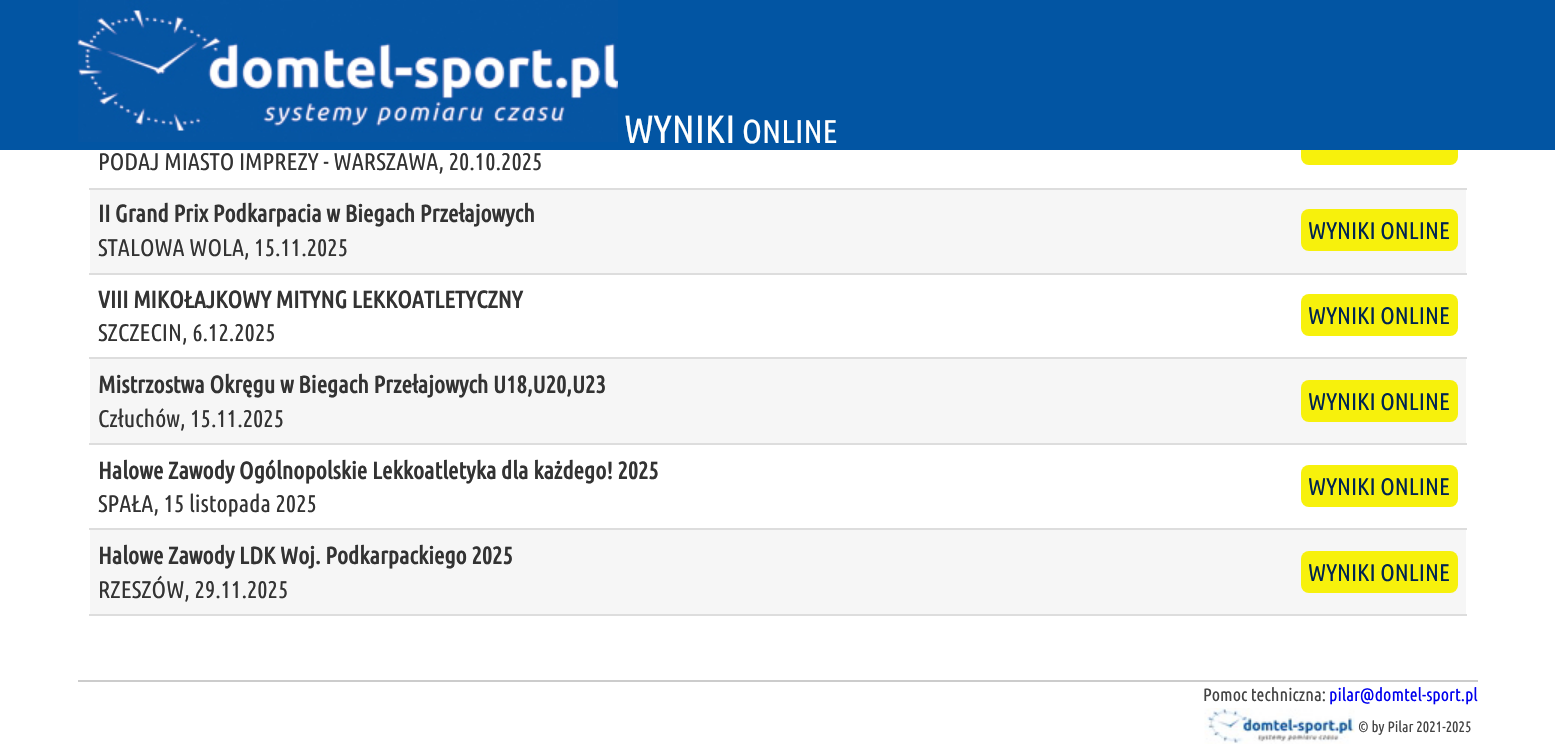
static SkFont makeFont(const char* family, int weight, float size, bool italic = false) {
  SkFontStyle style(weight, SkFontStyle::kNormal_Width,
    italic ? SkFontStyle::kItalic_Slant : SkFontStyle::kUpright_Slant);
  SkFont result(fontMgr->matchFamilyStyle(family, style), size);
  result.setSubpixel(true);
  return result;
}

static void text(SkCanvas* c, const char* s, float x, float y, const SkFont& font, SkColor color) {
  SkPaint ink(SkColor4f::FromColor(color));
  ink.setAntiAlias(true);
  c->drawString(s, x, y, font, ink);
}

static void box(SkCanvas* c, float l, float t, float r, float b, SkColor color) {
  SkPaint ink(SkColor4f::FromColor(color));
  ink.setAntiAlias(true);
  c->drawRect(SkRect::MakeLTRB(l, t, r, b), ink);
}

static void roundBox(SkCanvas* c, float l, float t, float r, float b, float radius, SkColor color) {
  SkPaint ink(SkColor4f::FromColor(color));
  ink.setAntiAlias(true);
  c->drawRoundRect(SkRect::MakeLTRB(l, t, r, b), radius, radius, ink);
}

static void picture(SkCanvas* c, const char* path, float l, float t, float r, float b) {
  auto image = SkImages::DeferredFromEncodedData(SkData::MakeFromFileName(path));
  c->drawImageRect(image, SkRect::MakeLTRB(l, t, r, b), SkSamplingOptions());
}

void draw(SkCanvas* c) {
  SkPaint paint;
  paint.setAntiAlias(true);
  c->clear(0xffffffff);
  roundBox(c, 1301, 123, 1458, 165, 8, 0xfff7f10c);
  box(c, 0, 0, 1555, 150, 0xff0255a3);
  picture(c, "img_01.png", 77, 0, 618, 142);
  SkFont face1 = makeFont("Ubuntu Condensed", 400, 39.5f);
  text(c, "WYNIKI", 624, 143, face1, 0xffffffff);
  SkFont face2 = makeFont("Ubuntu Condensed", 400, 33);
  text(c, "ONLINE", 742, 143, face2, 0xffffffff);
  box(c, 89, 188, 1467, 190, 0xffdddddd);
  SkFont face3 = makeFont("Ubuntu Condensed", 400, 24);
  text(c, "PODAJ MIASTO IMPREZY - WARSZAWA, 20.10.2025", 98, 170, face3, 0xff333333);
  box(c, 90, 190, 1466, 273, 0xfff6f6f6);
  box(c, 89, 273, 1467, 275, 0xffdddddd);
  SkFont face4 = makeFont("Ubuntu Condensed", 700, 24);
  text(c, "II Grand Prix Podkarpacia w Biegach Przełajowych", 98, 222, face4, 0xff333333);
  text(c, "STALOWA WOLA, 15.11.2025", 98, 256, face3, 0xff333333);
  roundBox(c, 1301, 209, 1458, 251, 8, 0xfff7f10c);
  text(c, "WYNIKI ONLINE", 1308, 239, face3, 0xff002450);
  box(c, 89, 357, 1467, 359, 0xffdddddd);
  text(c, "VIII MIKOŁAJKOWY MITYNG LEKKOATLETYCZNY", 98, 308, face4, 0xff333333);
  text(c, "SZCZECIN, 6.12.2025", 98, 341, face3, 0xff333333);
  roundBox(c, 1301, 294, 1458, 336, 8, 0xfff7f10c);
  text(c, "WYNIKI ONLINE", 1308, 324, face3, 0xff002450);
  box(c, 90, 359, 1466, 443, 0xfff6f6f6);
  box(c, 89, 443, 1467, 445, 0xffdddddd);
  text(c, "Mistrzostwa Okręgu w Biegach Przełajowych U18,U20,U23", 98, 393, face4, 0xff333333);
  text(c, "Człuchów, 15.11.2025", 98, 427, face3, 0xff333333);
  roundBox(c, 1301, 380, 1458, 422, 8, 0xfff7f10c);
  text(c, "WYNIKI ONLINE", 1308, 410, face3, 0xff002450);
  box(c, 89, 528, 1467, 530, 0xffdddddd);
  text(c, "Halowe Zawody Ogólnopolskie Lekkoatletyka dla każdego! 2025", 98, 479, face4, 0xff333333);
  text(c, "SPAŁA, 15 listopada 2025", 98, 512, face3, 0xff333333);
  roundBox(c, 1301, 465, 1458, 507, 8, 0xfff7f10c);
  text(c, "WYNIKI ONLINE", 1308, 495, face3, 0xff002450);
  box(c, 90, 530, 1466, 614, 0xfff6f6f6);
  box(c, 89, 614, 1467, 616, 0xffdddddd);
  text(c, "Halowe Zawody LDK Woj. Podkarpackiego 2025", 98, 564, face4, 0xff333333);
  text(c, "RZESZÓW, 29.11.2025", 98, 598, face3, 0xff333333);
  roundBox(c, 1301, 551, 1458, 593, 8, 0xfff7f10c);
  text(c, "WYNIKI ONLINE", 1308, 581, face3, 0xff002450);
  box(c, 78, 680, 1478, 682, 0xffcccccc);
  SkFont face5 = makeFont("Ubuntu Condensed", 400, 18);
  text(c, "Pomoc techniczna:", 1203, 701, face5, 0xff434343);
  text(c, "pilar@domtel-sport.pl", 1329, 701, face5, 0xff0000ee);
  picture(c, "img_02.png", 1204, 708, 1355, 744);
  SkFont face6 = makeFont("Ubuntu Condensed", 400, 15);
  text(c, "© by Pilar 2021-2025", 1358, 732, face6, 0xff434343);
}
